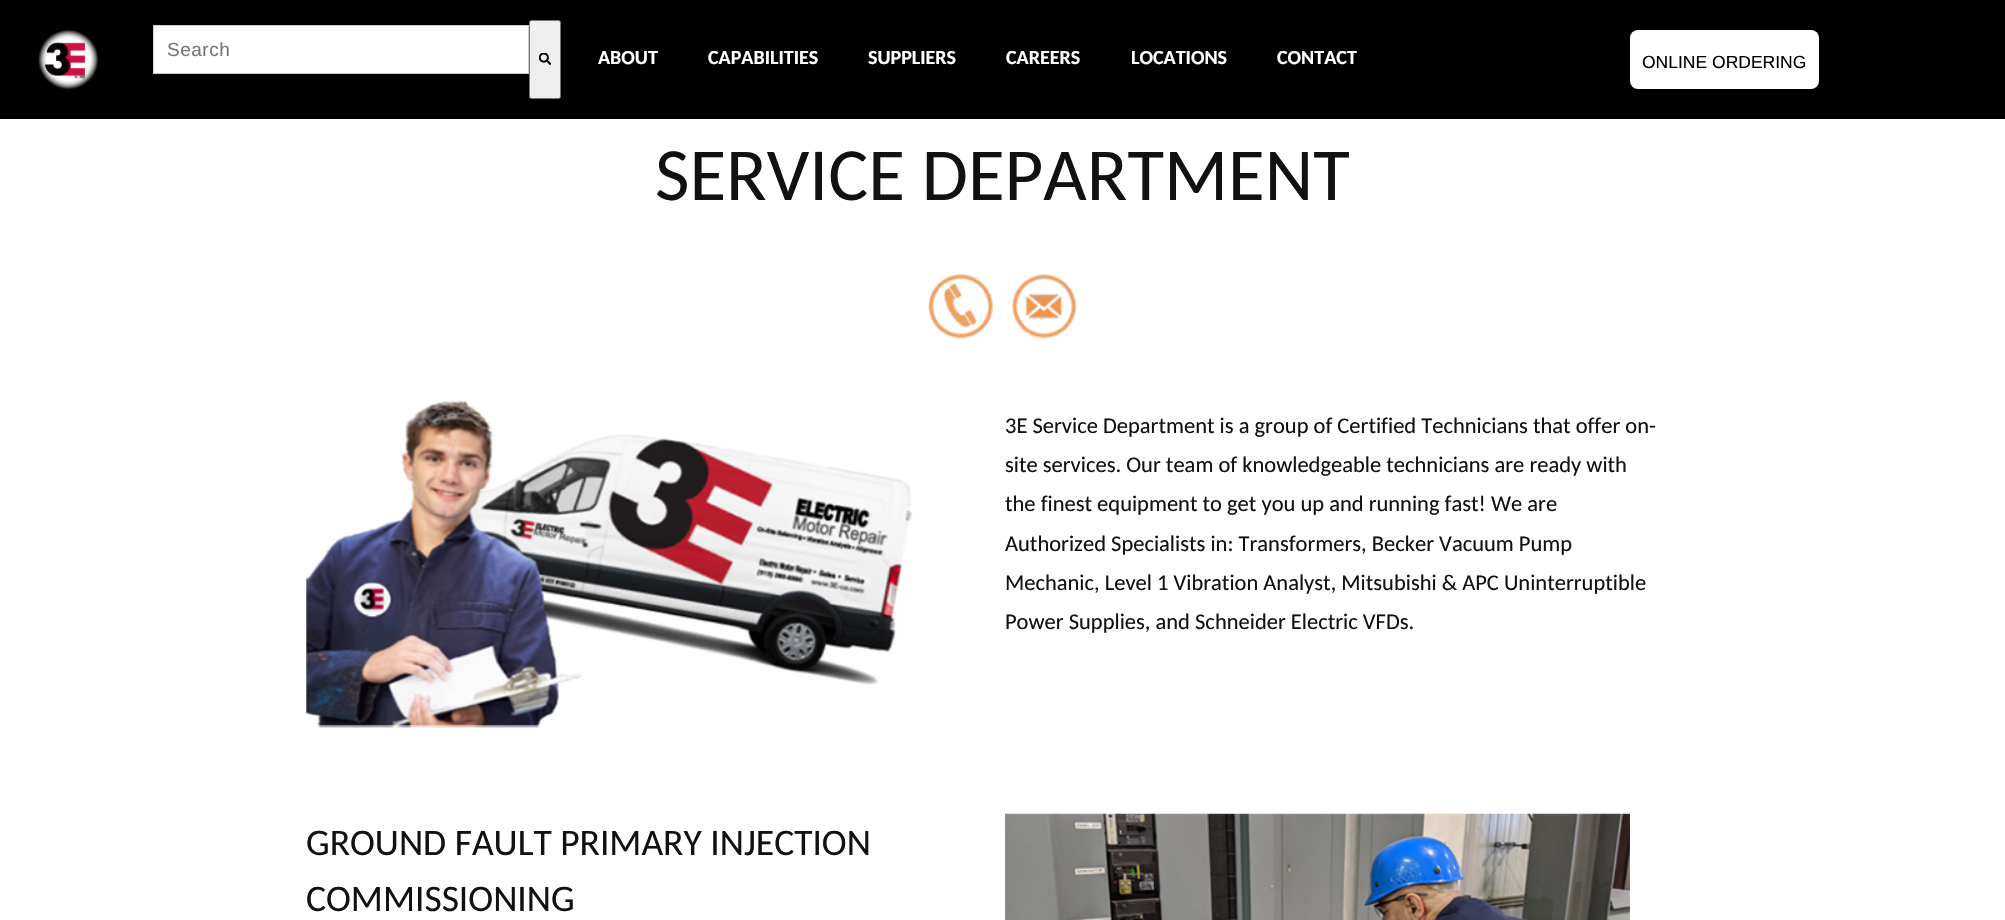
static SkFont makeFont(const char* family, int weight, float size, bool italic = false) {
  SkFontStyle style(weight, SkFontStyle::kNormal_Width,
    italic ? SkFontStyle::kItalic_Slant : SkFontStyle::kUpright_Slant);
  SkFont result(fontMgr->matchFamilyStyle(family, style), size);
  result.setSubpixel(true);
  return result;
}

static void text(SkCanvas* c, const char* s, float x, float y, const SkFont& font, SkColor color) {
  SkPaint ink(SkColor4f::FromColor(color));
  ink.setAntiAlias(true);
  c->drawString(s, x, y, font, ink);
}

static void spacedText(SkCanvas* c, const char* s, float x, float y, const SkFont& font, const SkPaint& ink, float letter, float word) {
  std::vector<SkGlyphID> glyphs(font.countText(s, strlen(s), SkTextEncoding::kUTF8));
  std::vector<float> xs(glyphs.size());
  font.textToGlyphs(s, strlen(s), SkTextEncoding::kUTF8, glyphs);
  font.getXPos(glyphs, xs, x);
  float extra = 0;
  for (size_t i = 0; i < glyphs.size(); i++) {
    xs[i] += extra;
    extra += letter + word * (glyphs[i] == font.unicharToGlyph(' '));
  }
  c->drawTextBlob(SkTextBlob::MakeFromPosHGlyphs(glyphs, xs, y, font), 0, 0, ink);
}

static void box(SkCanvas* c, float l, float t, float r, float b, SkColor color) {
  SkPaint ink(SkColor4f::FromColor(color));
  ink.setAntiAlias(true);
  c->drawRect(SkRect::MakeLTRB(l, t, r, b), ink);
}

static void roundBox(SkCanvas* c, float l, float t, float r, float b, float radius, SkColor color) {
  SkPaint ink(SkColor4f::FromColor(color));
  ink.setAntiAlias(true);
  c->drawRoundRect(SkRect::MakeLTRB(l, t, r, b), radius, radius, ink);
}

static void picture(SkCanvas* c, const char* path, float l, float t, float r, float b) {
  auto image = SkImages::DeferredFromEncodedData(SkData::MakeFromFileName(path));
  c->drawImageRect(image, SkRect::MakeLTRB(l, t, r, b), SkSamplingOptions());
}

void draw(SkCanvas* c) {
  SkPaint paint;
  paint.setAntiAlias(true);
  c->clear(0xffffffff);
  box(c, 0, 0, 2005, 119, 0xff000000);
  picture(c, "img_01.png", 38, 30, 99, 90);
  paint.setColor(0xffffffff);
  c->drawRect(SkRect::MakeLTRB(153.5f, 25.5f, 528.5f, 73.5f), paint);
  paint.setStyle(SkPaint::kStroke_Style);
  paint.setStrokeWidth(1);
  paint.setColor(0xffcccccc);
  c->drawRect(SkRect::MakeLTRB(153.5f, 25.5f, 528.5f, 73.5f), paint);
  SkFont face1 = makeFont("Liberation Sans", 400, 19);
  paint.setStyle(SkPaint::kFill_Style);
  paint.setColor(0xff757575);
  spacedText(c, "Search", 167, 56, face1, paint, 0.5f, 0);
  paint.setColor(0xffefefef);
  c->drawRoundRect(SkRect::MakeLTRB(529.5f, 20.5f, 560.5f, 98.5f), 2, 2, paint);
  paint.setStyle(SkPaint::kStroke_Style);
  paint.setColor(0xff767676);
  c->drawRoundRect(SkRect::MakeLTRB(529.5f, 20.5f, 560.5f, 98.5f), 2, 2, paint);
  picture(c, "img_02.png", 539, 53, 551, 65);
  SkFont face2 = makeFont("Carlito", 700, 20);
  text(c, "ABOUT", 598, 64, face2, 0xffffffff);
  text(c, "CAPABILITIES", 708, 64, face2, 0xffffffff);
  text(c, "SUPPLIERS", 868, 64, face2, 0xffffffff);
  text(c, "CAREERS", 1006, 64, face2, 0xffffffff);
  text(c, "LOCATIONS", 1131, 64, face2, 0xffffffff);
  text(c, "CONTACT", 1277, 64, face2, 0xffffffff);
  roundBox(c, 1630, 30, 1819, 89, 8, 0xffffffff);
  SkFont face3 = makeFont("Liberation Sans", 400, 17.5f);
  text(c, "ONLINE ORDERING", 1642, 68, face3, 0xff000000);
  SkFont face4 = makeFont("Carlito", 400, 75);
  text(c, "SERVICE DEPARTMENT", 655, 200, face4, 0xff111111);
  picture(c, "img_03.png", 928, 273, 994, 339);
  picture(c, "img_04.png", 1012, 273, 1077, 339);
  picture(c, "img_05.png", 306, 400, 913, 728);
  SkFont face5 = makeFont("Carlito", 400, 22.5f);
  text(c, "3E Service Department is a group of Certified Technicians that offer on-", 1005, 433, face5, 0xff111111);
  text(c, "site services. Our team of knowledgeable technicians are ready with", 1005, 472, face5, 0xff111111);
  text(c, "the finest equipment to get you up and running fast! We are", 1005, 511, face5, 0xff111111);
  text(c, "Authorized Specialists in: Transformers, Becker Vacuum Pump", 1005, 551, face5, 0xff111111);
  text(c, "Mechanic, Level 1 Vibration Analyst, Mitsubishi & APC Uninterruptible", 1005, 590, face5, 0xff111111);
  text(c, "Power Supplies, and Schneider Electric VFDs.", 1005, 629, face5, 0xff111111);
  SkFont face6 = makeFont("Carlito", 400, 37.5f);
  text(c, "GROUND FAULT PRIMARY INJECTION", 306, 855, face6, 0xff111111);
  text(c, "COMMISSIONING", 306, 911, face6, 0xff111111);
  picture(c, "img_06.png", 1005, 813, 1630, 920);
}
